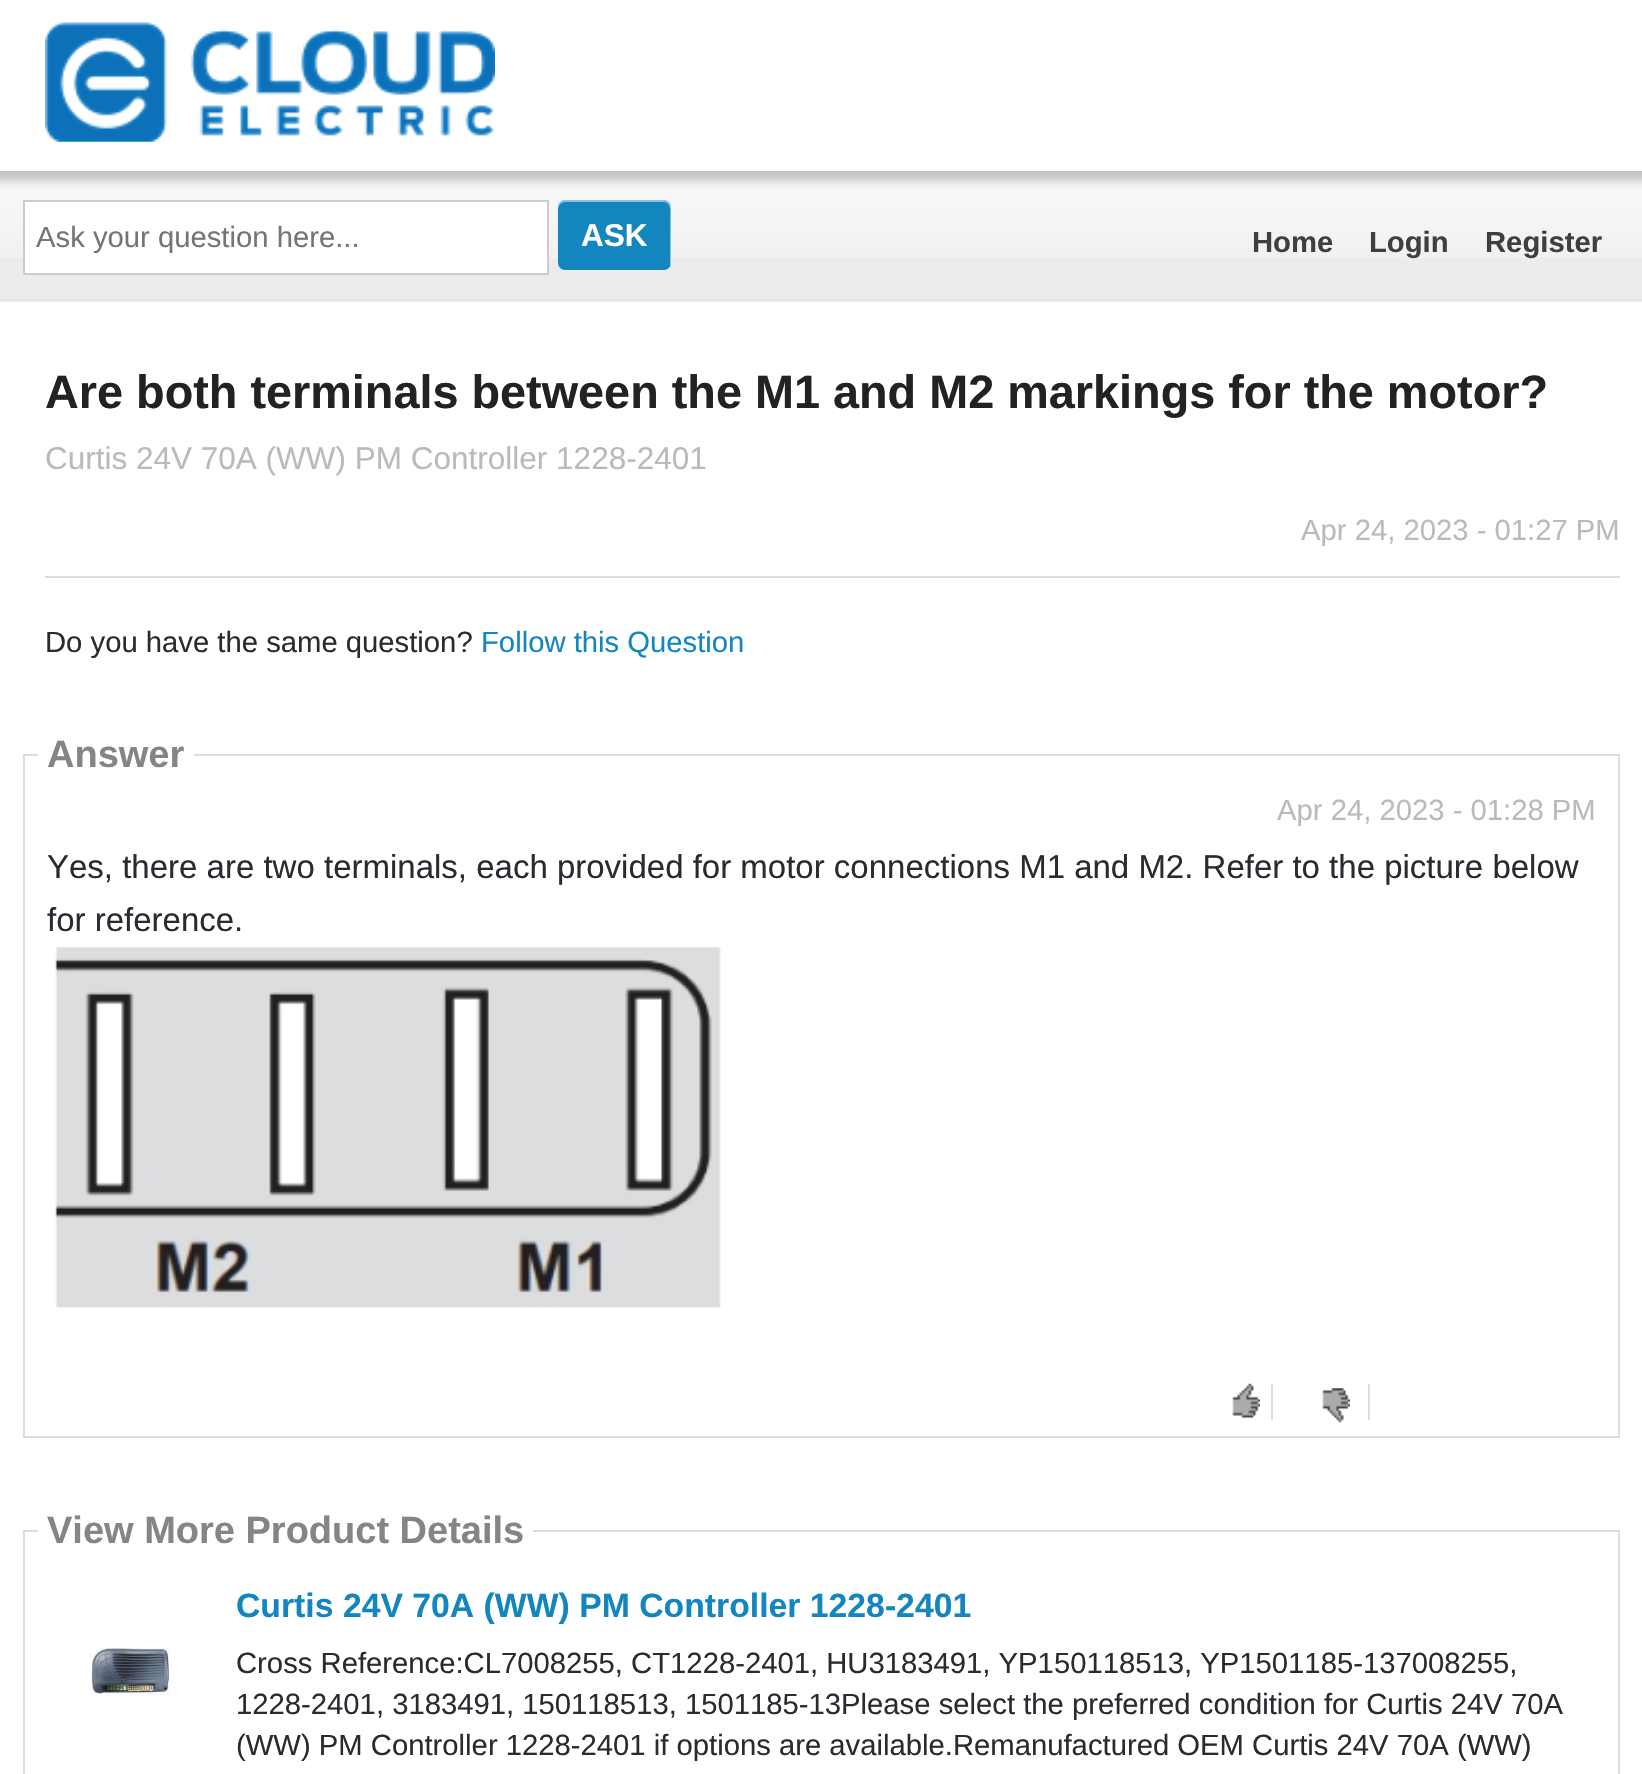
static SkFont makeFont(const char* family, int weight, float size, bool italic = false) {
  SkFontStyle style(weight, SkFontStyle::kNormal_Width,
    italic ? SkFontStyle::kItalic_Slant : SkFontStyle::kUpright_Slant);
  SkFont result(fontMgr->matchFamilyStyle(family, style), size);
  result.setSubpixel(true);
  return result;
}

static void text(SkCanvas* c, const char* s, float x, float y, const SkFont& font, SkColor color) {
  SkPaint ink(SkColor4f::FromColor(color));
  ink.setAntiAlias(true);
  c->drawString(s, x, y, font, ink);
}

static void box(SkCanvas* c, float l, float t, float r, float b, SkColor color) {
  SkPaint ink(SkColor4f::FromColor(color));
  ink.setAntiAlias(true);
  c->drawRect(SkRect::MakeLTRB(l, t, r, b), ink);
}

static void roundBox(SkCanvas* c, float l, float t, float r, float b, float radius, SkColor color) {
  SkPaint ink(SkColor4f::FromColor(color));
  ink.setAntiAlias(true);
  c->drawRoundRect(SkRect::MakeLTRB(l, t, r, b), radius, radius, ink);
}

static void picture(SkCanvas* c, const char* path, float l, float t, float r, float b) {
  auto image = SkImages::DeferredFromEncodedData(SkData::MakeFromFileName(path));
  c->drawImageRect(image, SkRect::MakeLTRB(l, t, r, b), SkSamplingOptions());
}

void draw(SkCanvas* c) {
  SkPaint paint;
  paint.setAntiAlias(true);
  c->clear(0xffffffff);
  picture(c, "img_01.png", 45, 22, 495, 142);
  box(c, 0, 258, 1642, 302, 0xffececec);
  picture(c, "img_02.png", 0, 171, 1642, 258);
  box(c, 0, 299, 1642, 301, 0xffe6e6e6);
  paint.setColor(0xffffffff);
  c->drawRect(SkRect::MakeLTRB(24, 201, 548, 274), paint);
  paint.setStyle(SkPaint::kStroke_Style);
  paint.setStrokeWidth(2);
  paint.setColor(0xffcccccc);
  c->drawRect(SkRect::MakeLTRB(24, 201, 548, 274), paint);
  SkFont face1 = makeFont("Liberation Sans", 400, 29.25f);
  text(c, "Ask your question here...", 36, 247, face1, 0xff757575);
  roundBox(c, 558, 200, 671, 270, 7, 0xff1386bf);
  paint.setStyle(SkPaint::kFill_Style);
  paint.setColor(0x80ffffff);
  c->drawPath(SkPathBuilder().moveTo(565, 202).lineTo(665, 202).cubicTo(672, 204, 670, 214, 670, 218).lineTo(670, 267).cubicTo(671, 266, 671, 264, 671, 263).lineTo(671, 207).cubicTo(671, 203, 668, 200, 664, 200).lineTo(565, 200).cubicTo(561, 200, 558, 203, 558, 207).lineTo(558, 209).cubicTo(558, 206, 561, 202, 565, 202).close().detach(), paint);
  SkFont face2 = makeFont("Liberation Sans", 700, 31.5f);
  text(c, "ASK", 581, 246, face2, 0xffffffff);
  SkFont face3 = makeFont("Liberation Sans", 700, 29.25f);
  text(c, "Home", 1252, 252, face3, 0xff3f3f40);
  text(c, "Login", 1369, 252, face3, 0xff3f3f40);
  text(c, "Register", 1485, 252, face3, 0xff3f3f40);
  SkFont face4 = makeFont("Liberation Sans", 700, 46.8f);
  text(c, "Are both terminals between the M1 and M2 markings for the motor?", 45, 408, face4, 0xff222222);
  SkFont face5 = makeFont("Liberation Sans", 400, 31.5f);
  text(c, "Curtis 24V 70A (WW) PM Controller 1228-2401", 45, 469, face5, 0xffbababa);
  text(c, "Apr 24, 2023 - 01:27 PM", 1301, 540, face1, 0xffbababa);
  box(c, 45, 576, 1620, 578, 0xffdddddd);
  text(c, "Do you have the same question?", 45, 652, face1, 0xff282b30);
  text(c, "Follow this Question", 481, 652, face1, 0xff1386bf);
  paint.setStyle(SkPaint::kStroke_Style);
  paint.setColor(0xffdddddd);
  c->drawRect(SkRect::MakeLTRB(24, 755, 1619, 1437), paint);
  box(c, 38, 754, 194, 756, 0xffffffff);
  SkFont face6 = makeFont("Liberation Sans", 700, 38);
  text(c, "Answer", 47, 767, face6, 0xff858585);
  text(c, "Apr 24, 2023 - 01:28 PM", 1277, 820, face1, 0xffbababa);
  SkFont face7 = makeFont("Liberation Sans", 400, 33);
  text(c, "Yes, there are two terminals, each provided for motor connections M1 and M2. Refer to the picture below", 47, 878, face7, 0xff282b30);
  text(c, "for reference.", 47, 931, face7, 0xff282b30);
  picture(c, "img_03.png", 55, 947, 721, 1308);
  box(c, 1271, 1384, 1273, 1420, 0xffdedede);
  picture(c, "img_04.png", 1232, 1383, 1260, 1419);
  box(c, 1368, 1384, 1370, 1420, 0xffdedede);
  picture(c, "img_05.png", 1322, 1388, 1350, 1423);
  c->drawRect(SkRect::MakeLTRB(24, 1531, 1619, 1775), paint);
  box(c, 38, 1530, 533, 1532, 0xffffffff);
  text(c, "View More Product Details", 47, 1543, face6, 0xff858585);
  picture(c, "img_06.png", 90, 1647, 170, 1695);
  SkFont face8 = makeFont("Liberation Sans", 700, 33.75f);
  text(c, "Curtis 24V 70A (WW) PM Controller 1228-2401", 236, 1617, face8, 0xff1386bf);
  text(c, "Cross Reference:CL7008255, CT1228-2401, HU3183491, YP150118513, YP1501185-137008255,", 236, 1673, face1, 0xff282b30);
  text(c, "1228-2401, 3183491, 150118513, 1501185-13Please select the preferred condition for Curtis 24V 70A", 236, 1714, face1, 0xff282b30);
  text(c, "(WW) PM Controller 1228-2401 if options are available.Remanufactured OEM Curtis 24V 70A (WW)", 236, 1755, face1, 0xff282b30);
}
